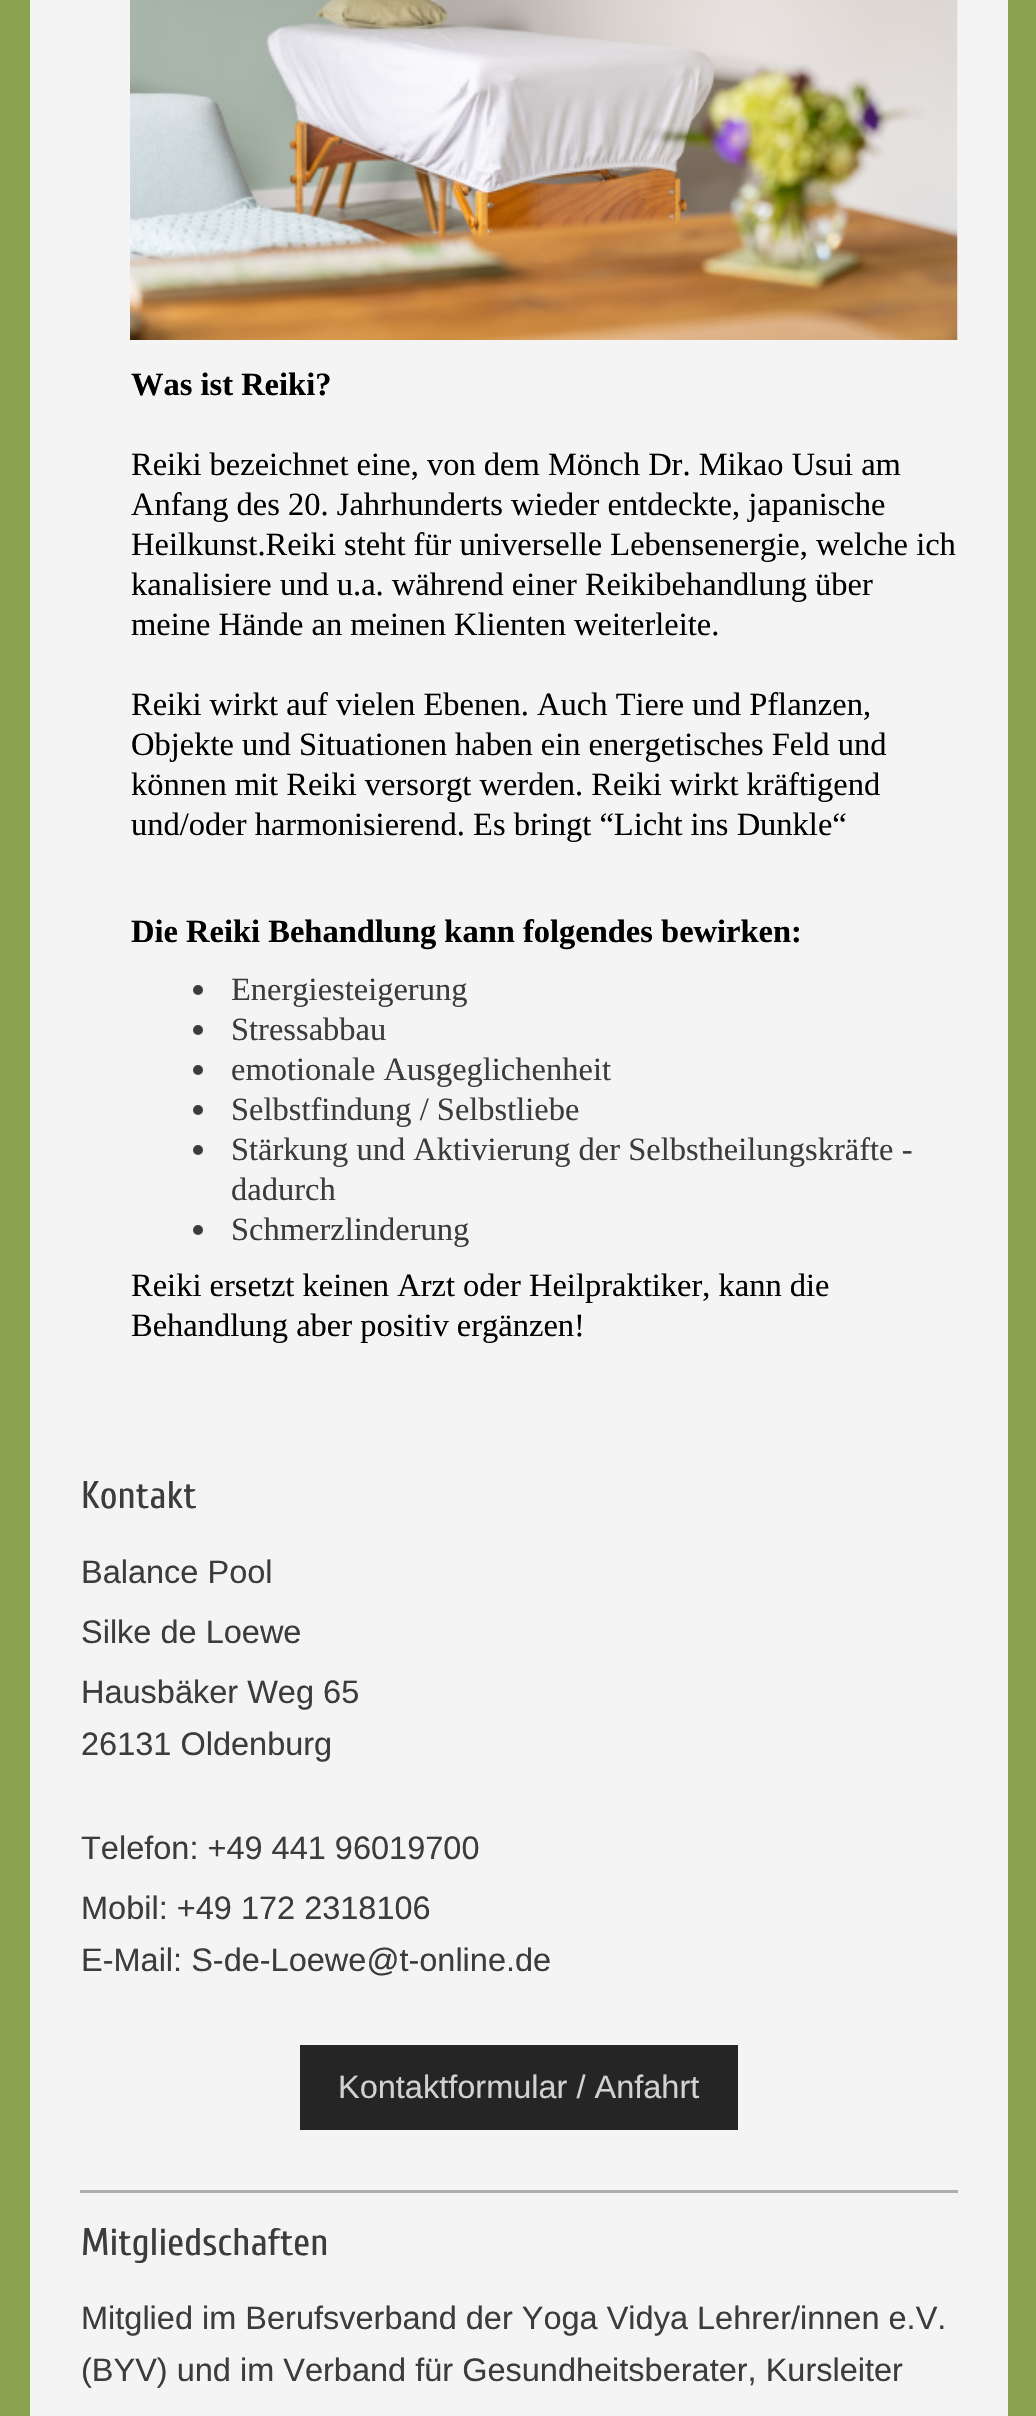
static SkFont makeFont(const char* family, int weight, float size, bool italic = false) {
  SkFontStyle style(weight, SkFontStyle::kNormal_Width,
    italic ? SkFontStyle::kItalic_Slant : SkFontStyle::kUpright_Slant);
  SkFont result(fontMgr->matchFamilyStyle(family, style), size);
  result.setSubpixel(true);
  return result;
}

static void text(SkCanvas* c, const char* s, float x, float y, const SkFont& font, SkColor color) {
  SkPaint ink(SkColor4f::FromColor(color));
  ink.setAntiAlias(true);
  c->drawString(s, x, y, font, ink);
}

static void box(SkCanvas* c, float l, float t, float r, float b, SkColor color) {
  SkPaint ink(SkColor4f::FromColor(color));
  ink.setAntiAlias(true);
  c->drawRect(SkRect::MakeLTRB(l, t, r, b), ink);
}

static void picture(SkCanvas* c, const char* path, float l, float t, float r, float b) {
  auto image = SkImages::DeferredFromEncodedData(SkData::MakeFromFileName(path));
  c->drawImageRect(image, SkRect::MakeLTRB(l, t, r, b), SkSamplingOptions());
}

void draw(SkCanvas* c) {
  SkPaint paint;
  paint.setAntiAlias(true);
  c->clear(0xff8ba351);
  box(c, 30, 0, 1008, 2416, 0xfff4f4f4);
  picture(c, "img_01.png", 130, 0, 958, 340);
  SkFont face1 = makeFont("Liberation Serif", 700, 32.5f);
  text(c, "Was ist Reiki?", 131, 395, face1, 0xff000000);
  SkFont face2 = makeFont("Liberation Serif", 400, 32.5f);
  text(c, "Reiki bezeichnet eine, von dem Mönch Dr. Mikao Usui am", 131, 475, face2, 0xff000000);
  text(c, "Anfang des 20. Jahrhunderts wieder entdeckte, japanische", 131, 515, face2, 0xff000000);
  text(c, "Heilkunst.Reiki steht für universelle Lebensenergie, welche ich", 131, 555, face2, 0xff000000);
  text(c, "kanalisiere und u.a. während einer Reikibehandlung über", 131, 595, face2, 0xff000000);
  text(c, "meine Hände an meinen Klienten weiterleite.", 131, 635, face2, 0xff000000);
  text(c, "Reiki wirkt auf vielen Ebenen. Auch Tiere und Pflanzen,", 131, 715, face2, 0xff000000);
  text(c, "Objekte und Situationen haben ein energetisches Feld und", 131, 755, face2, 0xff000000);
  text(c, "können mit Reiki versorgt werden. Reiki wirkt kräftigend", 131, 795, face2, 0xff000000);
  text(c, "und/oder harmonisierend. Es bringt “Licht ins Dunkle“", 131, 835, face2, 0xff000000);
  text(c, "Die Reiki Behandlung kann folgendes bewirken:", 131, 942, face1, 0xff000000);
  paint.setColor(0xff3c3c3c);
  c->drawCircle(198, 990, 5, paint);
  text(c, "Energiesteigerung", 231, 1000, face2, 0xff3c3c3c);
  c->drawCircle(198, 1030, 5, paint);
  text(c, "Stressabbau", 231, 1040, face2, 0xff3c3c3c);
  c->drawCircle(198, 1070, 5, paint);
  text(c, "emotionale Ausgeglichenheit", 231, 1080, face2, 0xff3c3c3c);
  c->drawCircle(198, 1110, 5, paint);
  text(c, "Selbstfindung / Selbstliebe", 231, 1120, face2, 0xff3c3c3c);
  c->drawCircle(198, 1150, 5, paint);
  text(c, "Stärkung und Aktivierung der Selbstheilungskräfte -", 231, 1160, face2, 0xff3c3c3c);
  text(c, "dadurch", 231, 1200, face2, 0xff3c3c3c);
  c->drawCircle(198, 1230, 5, paint);
  text(c, "Schmerzlinderung", 231, 1240, face2, 0xff3c3c3c);
  text(c, "Reiki ersetzt keinen Arzt oder Heilpraktiker, kann die", 131, 1296, face2, 0xff000000);
  text(c, "Behandlung aber positiv ergänzen!", 131, 1336, face2, 0xff000000);
  SkFont face3 = makeFont("Cuprum", 400, 38.5f);
  text(c, "Kontakt", 81, 1508, face3, 0xff3c3c3c);
  SkFont face4 = makeFont("Arimo", 400, 32.5f);
  text(c, "Balance Pool", 81, 1583, face4, 0xff3c3c3c);
  text(c, "Silke de Loewe", 81, 1643, face4, 0xff3c3c3c);
  text(c, "Hausbäker Weg 65", 81, 1703, face4, 0xff3c3c3c);
  text(c, "26131 Oldenburg", 81, 1755, face4, 0xff3c3c3c);
  text(c, "Telefon: +49 441 96019700", 81, 1859, face4, 0xff3c3c3c);
  text(c, "Mobil: +49 172 2318106", 81, 1919, face4, 0xff3c3c3c);
  text(c, "E-Mail: S-de-Loewe@t-online.de", 81, 1971, face4, 0xff3c3c3c);
  box(c, 300, 2045, 738, 2130, 0xff252525);
  text(c, "Kontaktformular / Anfahrt", 338, 2098, face4, 0xffd1d1d1);
  box(c, 80, 2190, 958, 2193, 0xffafafaf);
  text(c, "Mitgliedschaften", 81, 2255, face3, 0xff3c3c3c);
  text(c, "Mitglied im Berufsverband der Yoga Vidya Lehrer/innen e.V.", 81, 2329, face4, 0xff3c3c3c);
  text(c, "(BYV) und im Verband für Gesundheitsberater, Kursleiter", 81, 2381, face4, 0xff3c3c3c);
}
